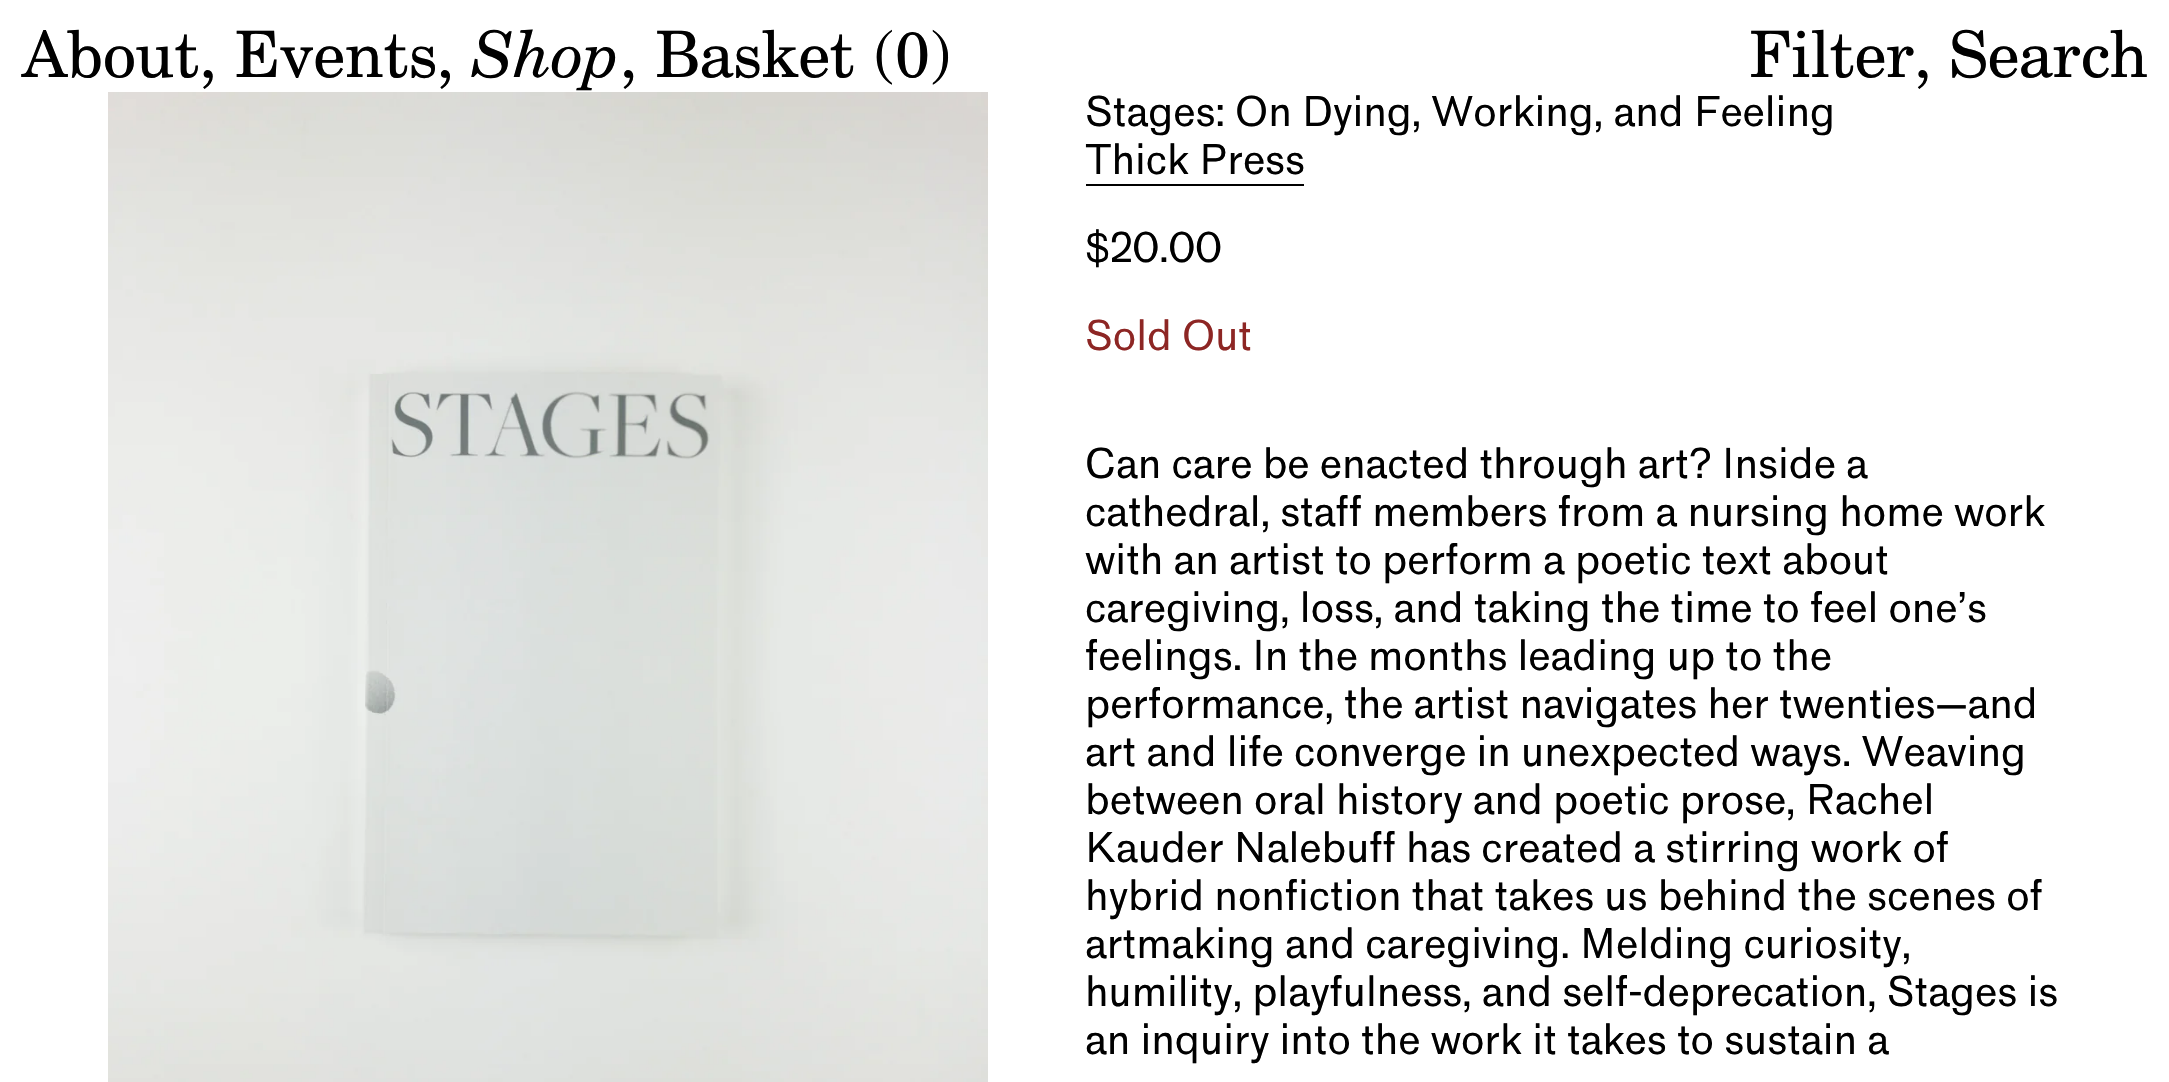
static SkFont makeFont(const char* family, int weight, float size, bool italic = false) {
  SkFontStyle style(weight, SkFontStyle::kNormal_Width,
    italic ? SkFontStyle::kItalic_Slant : SkFontStyle::kUpright_Slant);
  SkFont result(fontMgr->matchFamilyStyle(family, style), size);
  result.setSubpixel(true);
  return result;
}

static void text(SkCanvas* c, const char* s, float x, float y, const SkFont& font, SkColor color) {
  SkPaint ink(SkColor4f::FromColor(color));
  ink.setAntiAlias(true);
  c->drawString(s, x, y, font, ink);
}

static void box(SkCanvas* c, float l, float t, float r, float b, SkColor color) {
  SkPaint ink(SkColor4f::FromColor(color));
  ink.setAntiAlias(true);
  c->drawRect(SkRect::MakeLTRB(l, t, r, b), ink);
}

static void picture(SkCanvas* c, const char* path, float l, float t, float r, float b) {
  auto image = SkImages::DeferredFromEncodedData(SkData::MakeFromFileName(path));
  c->drawImageRect(image, SkRect::MakeLTRB(l, t, r, b), SkSamplingOptions());
}

void draw(SkCanvas* c) {
  SkPaint paint;
  paint.setAntiAlias(true);
  c->clear(0xffffffff);
  SkFont face1 = makeFont("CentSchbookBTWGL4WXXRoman", 400, 64);
  text(c, "About, Events,", 22, 77, face1, 0xff000000);
  SkFont face2 = makeFont("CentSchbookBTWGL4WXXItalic", 400, 64);
  text(c, "Shop", 471, 77, face2, 0xff000000);
  text(c, ", Basket (0)", 620, 77, face1, 0xff000000);
  text(c, "Filter, Search", 1749, 77, face1, 0xff000000);
  picture(c, "img_01.png", 108, 92, 988, 1082);
  SkFont face3 = makeFont("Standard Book", 400, 40);
  text(c, "Stages: On Dying, Working, and Feeling", 1085, 126, face3, 0xff000000);
  text(c, "Thick Press", 1085, 174, face3, 0xff000000);
  box(c, 1086, 184, 1304, 186, 0xff000000);
  text(c, "$20.00", 1085, 262, face3, 0xff000000);
  text(c, "Sold Out", 1085, 350, face3, 0xff8d2624);
  text(c, "Can care be enacted through art? Inside a", 1085, 478, face3, 0xff000000);
  text(c, "cathedral, staff members from a nursing home work", 1085, 526, face3, 0xff000000);
  text(c, "with an artist to perform a poetic text about", 1085, 574, face3, 0xff000000);
  text(c, "caregiving, loss, and taking the time to feel one’s", 1085, 622, face3, 0xff000000);
  text(c, "feelings. In the months leading up to the", 1085, 670, face3, 0xff000000);
  text(c, "performance, the artist navigates her twenties—and", 1085, 718, face3, 0xff000000);
  text(c, "art and life converge in unexpected ways. Weaving", 1085, 766, face3, 0xff000000);
  text(c, "between oral history and poetic prose, Rachel", 1085, 814, face3, 0xff000000);
  text(c, "Kauder Nalebuff has created a stirring work of", 1085, 862, face3, 0xff000000);
  text(c, "hybrid nonfiction that takes us behind the scenes of", 1085, 910, face3, 0xff000000);
  text(c, "artmaking and caregiving. Melding curiosity,", 1085, 958, face3, 0xff000000);
  text(c, "humility, playfulness, and self-deprecation, Stages is", 1085, 1006, face3, 0xff000000);
  text(c, "an inquiry into the work it takes to sustain a", 1085, 1054, face3, 0xff000000);
}
